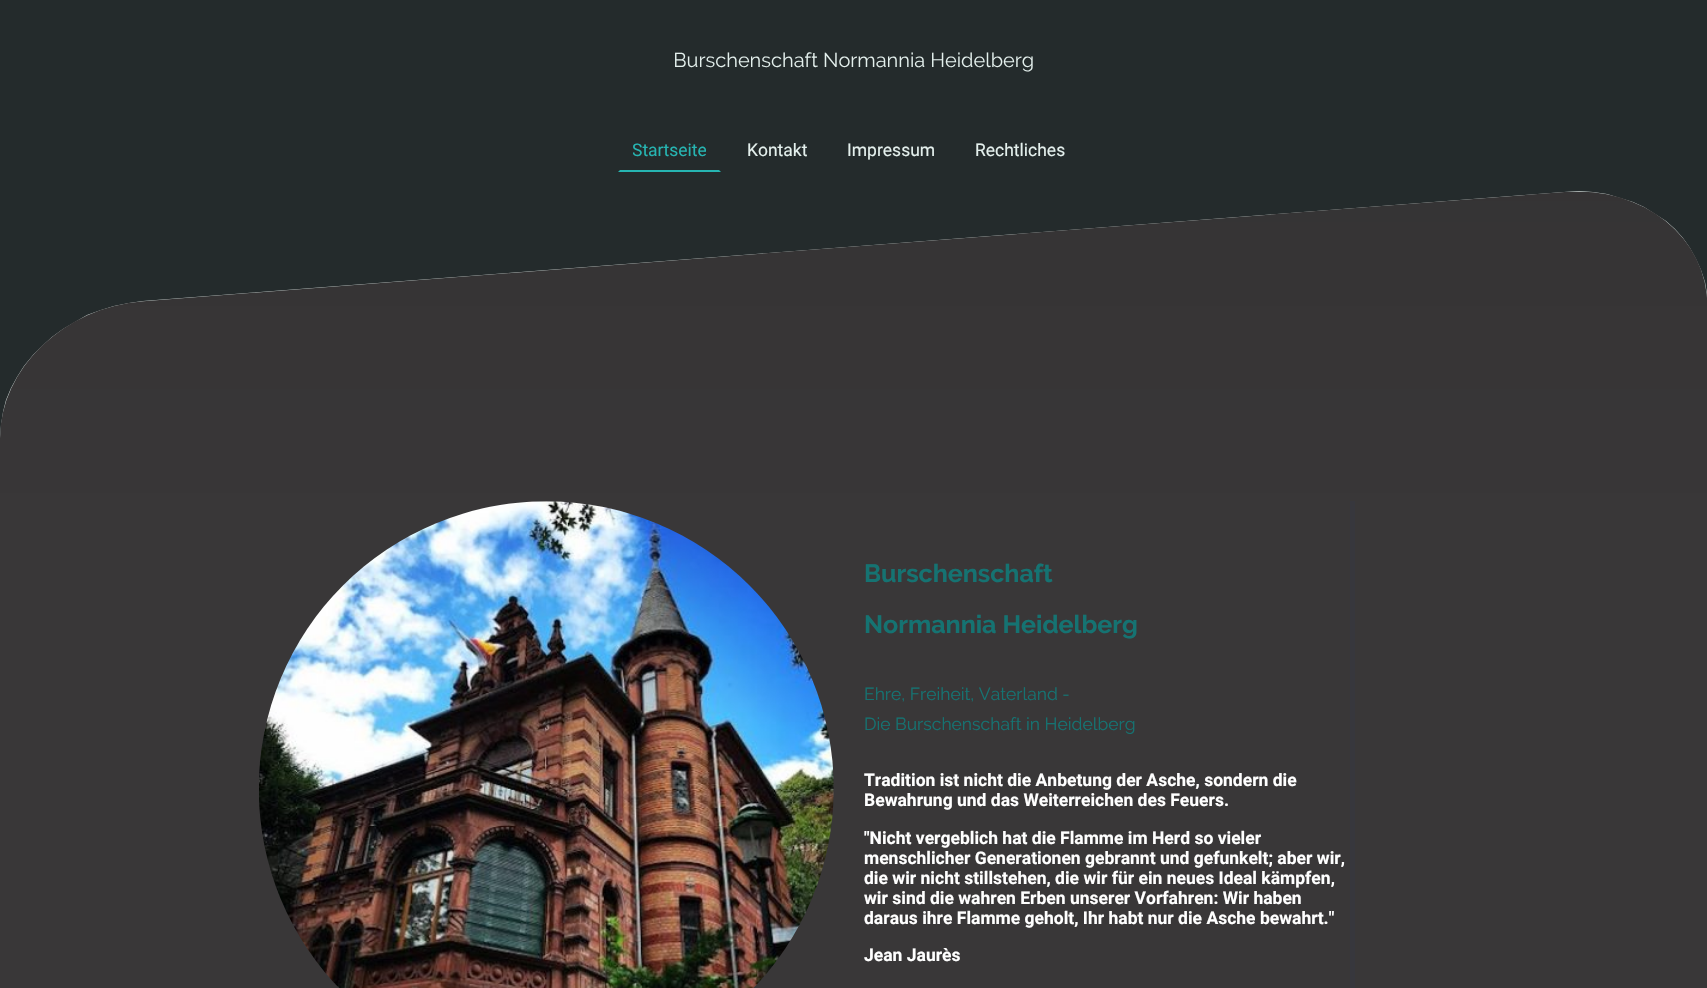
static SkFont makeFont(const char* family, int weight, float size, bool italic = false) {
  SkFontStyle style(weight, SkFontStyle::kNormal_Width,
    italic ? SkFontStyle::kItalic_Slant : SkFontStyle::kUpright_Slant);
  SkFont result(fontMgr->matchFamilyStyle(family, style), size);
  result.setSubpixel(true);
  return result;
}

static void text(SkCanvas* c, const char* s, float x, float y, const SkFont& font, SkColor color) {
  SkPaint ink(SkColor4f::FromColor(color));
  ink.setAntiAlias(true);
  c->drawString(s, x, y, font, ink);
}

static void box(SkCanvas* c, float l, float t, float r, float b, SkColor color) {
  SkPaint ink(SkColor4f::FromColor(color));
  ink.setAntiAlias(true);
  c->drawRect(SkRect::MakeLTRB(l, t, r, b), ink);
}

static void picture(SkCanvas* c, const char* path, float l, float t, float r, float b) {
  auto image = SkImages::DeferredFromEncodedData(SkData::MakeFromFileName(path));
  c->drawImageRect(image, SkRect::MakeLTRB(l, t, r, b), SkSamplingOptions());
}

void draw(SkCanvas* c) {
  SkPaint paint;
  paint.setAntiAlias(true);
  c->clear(0xff242b2c);
  picture(c, "img_01.png", 675, 52, 1033, 72);
  paint.setColor(0xff26b5b2);
  c->drawPath(SkPathBuilder().moveTo(721, 172).lineTo(618, 172).lineTo(620, 170).lineTo(719, 170).close().detach(), paint);
  c->save();
  c->clipRect(SkRect::MakeLTRB(633, 140, 706, 160));
  SkFont face1 = makeFont("Roboto", 400, 17.5f);
  text(c, "Startseite", 632, 156, face1, 0xff26b5b2);
  c->restore();
  text(c, "Kontakt", 747, 156, face1, 0xffe4f0ed);
  text(c, "Impressum", 847, 156, face1, 0xffe4f0ed);
  text(c, "Rechtliches", 975, 156, face1, 0xffe4f0ed);
  paint.setColor(0xffe4f0ed);
  c->drawPath(SkPathBuilder().moveTo(0, 438).lineTo(0, 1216).lineTo(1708, 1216).lineTo(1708, 307).lineTo(1707, 294).lineTo(1705, 282).lineTo(1701, 270).lineTo(1696, 259).lineTo(1690, 248).lineTo(1683, 238).lineTo(1675, 229).lineTo(1666, 221).lineTo(1655, 214).lineTo(1644, 207).lineTo(1633, 202).lineTo(1620, 198).lineTo(1607, 194).lineTo(1593, 192).lineTo(1579, 191).lineTo(1564, 192).lineTo(143, 301).lineTo(129, 303).lineTo(114, 306).lineTo(101, 310).lineTo(87, 315).lineTo(75, 322).lineTo(63, 329).lineTo(52, 337).lineTo(42, 346).lineTo(33, 355).lineTo(24, 366).lineTo(17, 377).lineTo(11, 388).lineTo(6, 400).lineTo(3, 412).lineTo(1, 425).close().detach(), paint);
  picture(c, "img_02.png", 0, 191, 1707, 988);
  {
    const SkColor colors[] = {0x12000000, 0x00000000};
    const float stops[] = {0, 1};
    const SkPoint ends[] = {{854, 191}, {854, 566}};
    paint.setShader(SkGradientShader::MakeLinear(ends, colors, stops, 2, SkTileMode::kClamp));
    paint.setAlpha(255);
  }
  c->drawPath(SkPathBuilder().moveTo(0, 438).lineTo(0, 566).lineTo(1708, 566).lineTo(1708, 307).lineTo(1707, 294).lineTo(1705, 282).lineTo(1701, 270).lineTo(1696, 259).lineTo(1690, 248).lineTo(1683, 238).lineTo(1675, 229).lineTo(1666, 221).lineTo(1655, 214).lineTo(1644, 207).lineTo(1633, 202).lineTo(1620, 198).lineTo(1607, 194).lineTo(1593, 192).lineTo(1579, 191).lineTo(1564, 192).lineTo(143, 301).lineTo(129, 303).lineTo(114, 306).lineTo(101, 310).lineTo(87, 315).lineTo(75, 322).lineTo(63, 329).lineTo(52, 337).lineTo(42, 346).lineTo(33, 355).lineTo(24, 366).lineTo(17, 377).lineTo(11, 388).lineTo(6, 400).lineTo(3, 412).lineTo(1, 425).close().detach(), paint);
  picture(c, "img_03.png", 259, 501, 834, 988);
  SkFont face2 = makeFont("Raleway", 700, 25);
  text(c, "Burschenschaft", 864, 582, face2, 0xff157372);
  text(c, "Normannia Heidelberg", 864, 633, face2, 0xff157372);
  SkFont face3 = makeFont("Raleway", 400, 17.5f);
  text(c, "Ehre, Freiheit, Vaterland -", 864, 700, face3, 0xff157372);
  text(c, "Die Burschenschaft in Heidelberg", 864, 730, face3, 0xff157372);
  SkFont face4 = makeFont("Roboto", 700, 17.5f);
  text(c, "Tradition ist nicht die Anbetung der Asche, sondern die", 864, 786, face4, 0xffffffff);
  text(c, "Bewahrung und das Weiterreichen des Feuers.", 864, 806, face4, 0xffffffff);
  text(c, "\"Nicht vergeblich hat die Flamme im Herd so vieler", 864, 844, face4, 0xffffffff);
  text(c, "menschlicher Generationen gebrannt und gefunkelt; aber wir,", 864, 864, face4, 0xffffffff);
  text(c, "die wir nicht stillstehen, die wir für ein neues Ideal kämpfen,", 864, 884, face4, 0xffffffff);
  text(c, "wir sind die wahren Erben unserer Vorfahren: Wir haben", 864, 904, face4, 0xffffffff);
  text(c, "daraus ihre Flamme geholt, Ihr habt nur die Asche bewahrt.\"", 864, 924, face4, 0xffffffff);
  text(c, "Jean Jaurès", 864, 961, face4, 0xffffffff);
  box(c, 1350, 501, 1355, 988, 0xff37373d);
}
